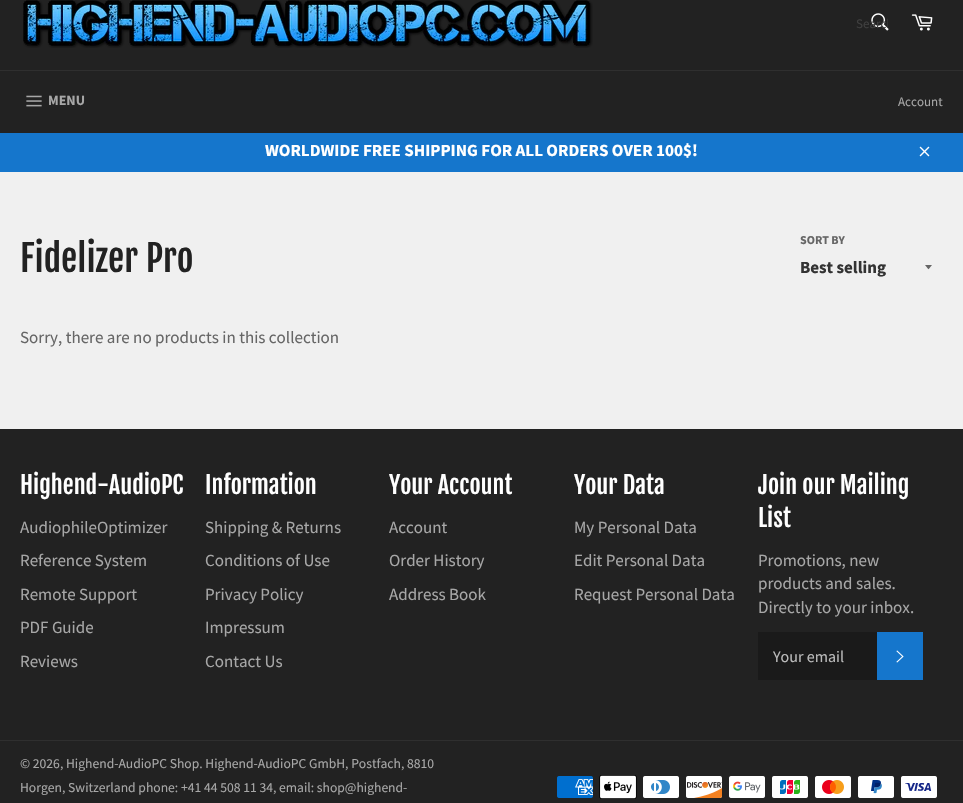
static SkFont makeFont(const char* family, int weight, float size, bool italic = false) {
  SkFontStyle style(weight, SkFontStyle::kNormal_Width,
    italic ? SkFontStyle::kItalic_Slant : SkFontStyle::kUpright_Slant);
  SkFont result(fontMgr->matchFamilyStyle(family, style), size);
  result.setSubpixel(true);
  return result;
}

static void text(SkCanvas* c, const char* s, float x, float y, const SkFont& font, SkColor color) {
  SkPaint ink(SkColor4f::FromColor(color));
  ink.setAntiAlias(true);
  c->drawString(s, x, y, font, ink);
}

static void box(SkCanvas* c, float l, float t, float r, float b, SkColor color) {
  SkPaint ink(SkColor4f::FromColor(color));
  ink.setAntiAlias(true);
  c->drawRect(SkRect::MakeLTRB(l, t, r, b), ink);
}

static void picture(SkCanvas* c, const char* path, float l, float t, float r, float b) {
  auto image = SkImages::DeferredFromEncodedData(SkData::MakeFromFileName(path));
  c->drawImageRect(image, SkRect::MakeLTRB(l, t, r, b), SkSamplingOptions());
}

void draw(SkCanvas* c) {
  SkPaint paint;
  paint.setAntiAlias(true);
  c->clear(0xfff0f0f0);
  box(c, 0, 0, 963, 70, 0xff222222);
  picture(c, "img_01.png", 23, 0, 593, 48);
  picture(c, "img_02.png", 871, 13, 889, 31);
  c->save();
  c->clipRect(SkRect::MakeLTRB(856, 15, 888, 32));
  SkFont face1 = makeFont("Source Sans Pro", 400, 13);
  text(c, "Search", 856, 28, face1, 0xff3f3f3f);
  c->restore();
  picture(c, "img_03.png", 911, 14, 933, 31);
  box(c, 0, 71, 963, 133, 0xff222222);
  box(c, 0, 70, 963, 71, 0xff2f2f2f);
  picture(c, "img_04.png", 26, 95, 42, 107);
  SkFont face2 = makeFont("Source Sans Pro", 700, 14);
  text(c, "MENU", 48, 105, face2, 0xffa7a7a7);
  text(c, "Account", 898, 106, face1, 0xffa7a7a7);
  box(c, 0, 133, 963, 172, 0xff1576cc);
  SkFont face3 = makeFont("Source Sans Pro", 700, 17);
  text(c, "WORLDWIDE FREE SHIPPING FOR ALL ORDERS OVER 100$!", 265, 156, face3, 0xffffffff);
  picture(c, "img_05.png", 919, 146, 930, 157);
  SkFont face4 = makeFont("Fjalla One", 400, 36);
  text(c, "Fidelizer Pro", 20, 272, face4, 0xff222222);
  SkFont face5 = makeFont("Source Sans Pro", 700, 12);
  text(c, "SORT BY", 800, 244, face5, 0xff666666);
  paint.setColor(0xff666666);
  c->drawPath(SkPathBuilder().moveTo(925, 265).cubicTo(929.5f, 270.5f, 927.5f, 270.5f, 932, 265).close().detach(), paint);
  text(c, "Best selling", 800, 273, face3, 0xff333333);
  SkFont face6 = makeFont("Source Sans Pro", 400, 17);
  text(c, "Sorry, there are no products in this collection", 20, 343, face6, 0xff666666);
  box(c, 0, 429, 963, 803, 0xff222222);
  SkFont face7 = makeFont("Fjalla One", 400, 24);
  text(c, "Highend-AudioPC", 20, 494, face7, 0xffffffff);
  text(c, "AudiophileOptimizer", 20, 533, face6, 0xffa7a7a7);
  text(c, "Reference System", 20, 566, face6, 0xffa7a7a7);
  text(c, "Remote Support", 20, 600, face6, 0xffa7a7a7);
  text(c, "PDF Guide", 20, 633, face6, 0xffa7a7a7);
  text(c, "Reviews", 20, 667, face6, 0xffa7a7a7);
  text(c, "Information", 205, 494, face7, 0xffffffff);
  text(c, "Shipping & Returns", 205, 533, face6, 0xffa7a7a7);
  text(c, "Conditions of Use", 205, 566, face6, 0xffa7a7a7);
  text(c, "Privacy Policy", 205, 600, face6, 0xffa7a7a7);
  text(c, "Impressum", 205, 633, face6, 0xffa7a7a7);
  text(c, "Contact Us", 205, 667, face6, 0xffa7a7a7);
  text(c, "Your Account", 389, 494, face7, 0xffffffff);
  text(c, "Account", 389, 533, face6, 0xffa7a7a7);
  text(c, "Order History", 389, 566, face6, 0xffa7a7a7);
  text(c, "Address Book", 389, 600, face6, 0xffa7a7a7);
  text(c, "Your Data", 574, 494, face7, 0xffffffff);
  text(c, "My Personal Data", 574, 533, face6, 0xffa7a7a7);
  text(c, "Edit Personal Data", 574, 566, face6, 0xffa7a7a7);
  text(c, "Request Personal Data", 574, 600, face6, 0xffa7a7a7);
  text(c, "Join our Mailing", 758, 494, face7, 0xffffffff);
  text(c, "List", 758, 527, face7, 0xffffffff);
  text(c, "Promotions, new", 758, 566, face6, 0xffa7a7a7);
  text(c, "products and sales.", 758, 589, face6, 0xffa7a7a7);
  text(c, "Directly to your inbox.", 758, 613, face6, 0xffa7a7a7);
  box(c, 758, 632, 877, 680, 0xff1a1a1a);
  SkFont face8 = makeFont("Source Sans Pro", 400, 16);
  text(c, "Your email", 773, 662, face8, 0xffbababa);
  box(c, 877, 632, 923, 680, 0xff1576cc);
  picture(c, "img_06.png", 896, 650, 904, 663);
  box(c, 0, 740, 963, 741, 0xff2f2f2f);
  SkFont face9 = makeFont("Source Sans Pro", 400, 13.6f);
  text(c, "© 2026, Highend-AudioPC Shop. Highend-AudioPC GmbH, Postfach, 8810", 20, 768, face9, 0xffa7a7a7);
  text(c, "Horgen, Switzerland phone: +41 44 508 11 34, email: shop@highend-", 20, 792, face9, 0xffa7a7a7);
  picture(c, "img_07.png", 557, 776, 593, 798);
  picture(c, "img_08.png", 599, 775, 637, 799);
  picture(c, "img_09.png", 643, 776, 679, 798);
  picture(c, "img_10.png", 686, 776, 722, 798);
  picture(c, "img_11.png", 729, 776, 765, 798);
  picture(c, "img_12.png", 772, 776, 808, 798);
  picture(c, "img_13.png", 815, 776, 851, 798);
  picture(c, "img_14.png", 858, 776, 894, 798);
  picture(c, "img_15.png", 901, 776, 937, 798);
}
